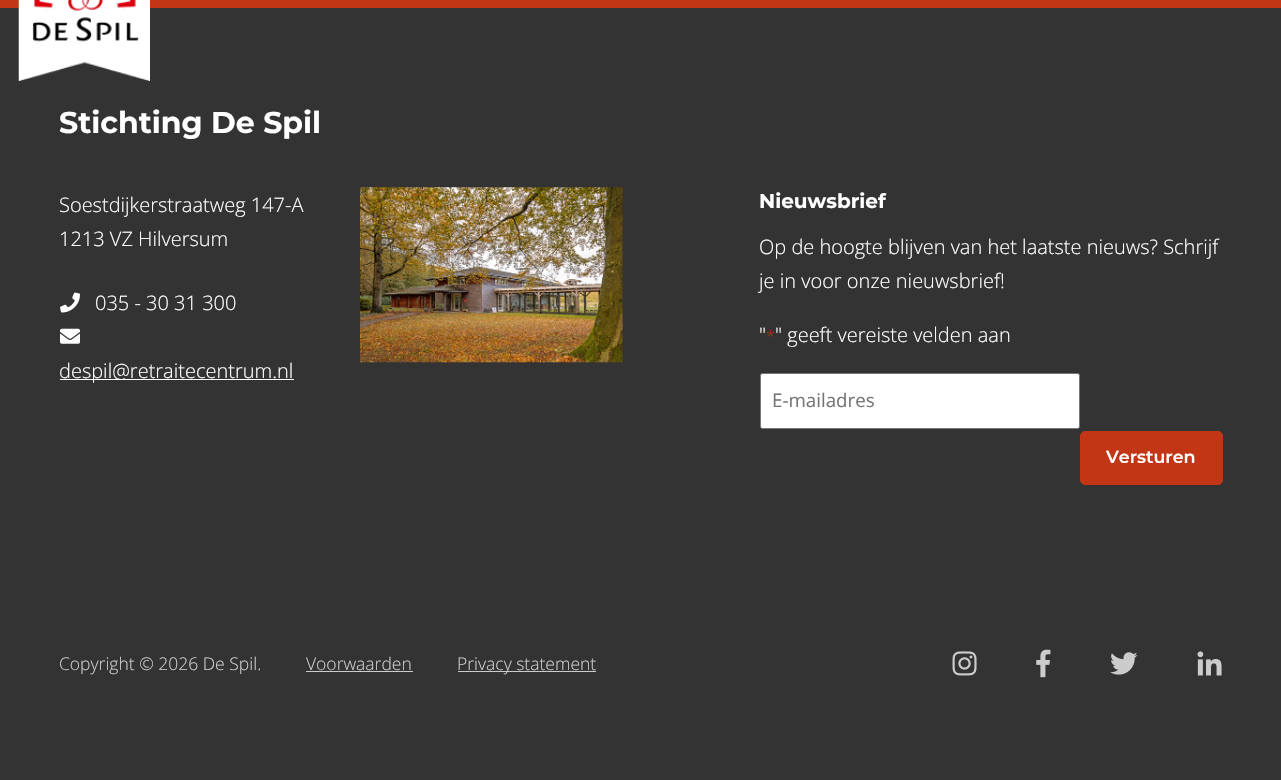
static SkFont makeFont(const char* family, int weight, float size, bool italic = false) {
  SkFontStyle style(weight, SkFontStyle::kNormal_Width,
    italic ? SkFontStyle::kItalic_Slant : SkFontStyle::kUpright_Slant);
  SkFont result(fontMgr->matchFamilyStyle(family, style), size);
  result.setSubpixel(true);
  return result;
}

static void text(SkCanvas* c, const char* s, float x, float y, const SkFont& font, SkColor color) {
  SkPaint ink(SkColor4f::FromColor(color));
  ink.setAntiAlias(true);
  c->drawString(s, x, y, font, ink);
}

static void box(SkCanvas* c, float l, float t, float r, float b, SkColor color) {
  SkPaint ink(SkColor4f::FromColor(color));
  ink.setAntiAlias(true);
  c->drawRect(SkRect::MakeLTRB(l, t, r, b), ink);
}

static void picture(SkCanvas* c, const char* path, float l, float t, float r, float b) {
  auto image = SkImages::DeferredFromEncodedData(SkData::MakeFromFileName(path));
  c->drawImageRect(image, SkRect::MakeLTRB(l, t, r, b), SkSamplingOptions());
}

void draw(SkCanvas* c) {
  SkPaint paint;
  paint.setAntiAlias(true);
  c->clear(0xff333333);
  box(c, 0, 0, 1281, 8, 0xffc23616);
  picture(c, "img_01.png", 18, 0, 150, 81);
  SkFont face1 = makeFont("Montserrat", 700, 30);
  text(c, "Stichting De Spil", 59, 133, face1, 0xffffffff);
  SkFont face2 = makeFont("Open Sans", 300, 20);
  text(c, "Soestdijkerstraatweg 147-A", 59, 212, face2, 0xffffffff);
  text(c, "1213 VZ Hilversum", 59, 246, face2, 0xffffffff);
  picture(c, "img_02.png", 60, 292, 80, 313);
  text(c, "035 - 30 31 300", 95, 310, face2, 0xffffffff);
  picture(c, "img_03.png", 60, 328, 80, 344);
  box(c, 60, 379, 294, 380, 0xffffffff);
  text(c, "despil@retraitecentrum.nl", 59, 378, face2, 0xffffffff);
  picture(c, "img_04.png", 360, 187, 623, 363);
  SkFont face3 = makeFont("Montserrat", 700, 20);
  text(c, "Nieuwsbrief", 759, 208, face3, 0xffffffff);
  text(c, "Op de hoogte blijven van het laatste nieuws? Schrijf", 759, 254, face2, 0xffffffff);
  text(c, "je in voor onze nieuwsbrief!", 759, 288, face2, 0xffffffff);
  text(c, "\"", 759, 342, face2, 0xffffffff);
  SkFont face4 = makeFont("Open Sans", 300, 16);
  text(c, "*", 766, 342, face4, 0xffc02b0a);
  text(c, "\" geeft vereiste velden aan", 775, 342, face2, 0xffffffff);
  paint.setColor(0xffffffff);
  c->drawRoundRect(SkRect::MakeLTRB(760.5f, 373.5f, 1079.5f, 428.5f), 2, 2, paint);
  paint.setStyle(SkPaint::kStroke_Style);
  paint.setStrokeWidth(1);
  paint.setColor(0xff767676);
  c->drawRoundRect(SkRect::MakeLTRB(760.5f, 373.5f, 1079.5f, 428.5f), 2, 2, paint);
  SkFont face5 = makeFont("Open Sans", 400, 18.75f);
  text(c, "E-mailadres", 772, 407, face5, 0xff757575);
  paint.setStyle(SkPaint::kFill_Style);
  paint.setColor(0xffc23616);
  c->drawRoundRect(SkRect::MakeLTRB(1080.5f, 431.5f, 1222.5f, 484.5f), 4.5f, 4.5f, paint);
  paint.setStyle(SkPaint::kStroke_Style);
  c->drawRoundRect(SkRect::MakeLTRB(1080.5f, 431.5f, 1222.5f, 484.5f), 4.5f, 4.5f, paint);
  SkFont face6 = makeFont("Montserrat", 600, 17.5f);
  text(c, "Versturen", 1106, 463, face6, 0xffffffff);
  SkFont face7 = makeFont("Open Sans", 300, 17.5f);
  text(c, "Copyright © 2026 De Spil.", 59, 670, face7, 0xffcccccc);
  text(c, "Voorwaarden", 306, 670, face7, 0xffcccccc);
  box(c, 306, 671, 413, 672, 0xffcccccc);
  box(c, 458, 671, 596, 672, 0xffcccccc);
  text(c, "Privacy statement", 457, 670, face7, 0xffcccccc);
  picture(c, "img_05.png", 952, 651, 977, 676);
  picture(c, "img_06.png", 1036, 649, 1051, 678);
  picture(c, "img_07.png", 1110, 652, 1138, 675);
  picture(c, "img_08.png", 1197, 651, 1222, 676);
}
